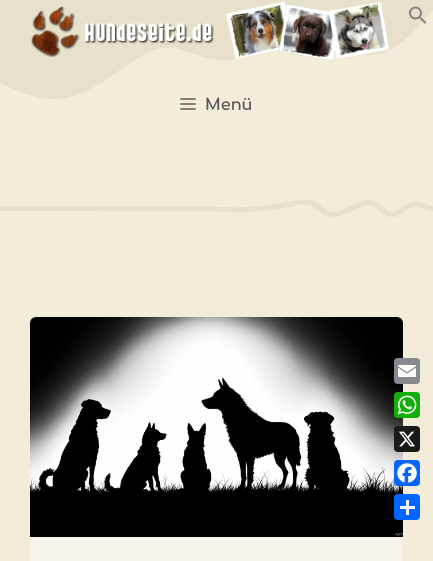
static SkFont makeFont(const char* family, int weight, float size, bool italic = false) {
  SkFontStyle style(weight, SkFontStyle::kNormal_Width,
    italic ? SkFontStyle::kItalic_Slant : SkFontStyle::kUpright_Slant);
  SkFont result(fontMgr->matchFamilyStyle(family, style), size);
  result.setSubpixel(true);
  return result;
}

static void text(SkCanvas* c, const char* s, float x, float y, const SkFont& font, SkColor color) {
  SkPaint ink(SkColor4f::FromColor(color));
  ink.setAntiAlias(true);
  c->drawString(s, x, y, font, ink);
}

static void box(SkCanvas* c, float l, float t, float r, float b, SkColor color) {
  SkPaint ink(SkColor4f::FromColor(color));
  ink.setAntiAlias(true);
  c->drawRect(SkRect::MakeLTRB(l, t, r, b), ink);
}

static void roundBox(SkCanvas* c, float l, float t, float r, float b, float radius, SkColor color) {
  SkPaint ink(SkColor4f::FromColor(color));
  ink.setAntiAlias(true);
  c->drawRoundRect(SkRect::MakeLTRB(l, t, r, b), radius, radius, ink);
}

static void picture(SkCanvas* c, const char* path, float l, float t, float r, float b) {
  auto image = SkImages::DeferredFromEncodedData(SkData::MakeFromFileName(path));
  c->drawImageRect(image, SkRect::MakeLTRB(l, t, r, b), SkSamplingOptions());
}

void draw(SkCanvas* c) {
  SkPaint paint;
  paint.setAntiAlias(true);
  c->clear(0xfff2ecd8);
  picture(c, "img_01.png", 0, 200, 433, 217);
  paint.setColor(0xffe7e0ca);
  c->drawPath(SkPathBuilder().moveTo(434, 9).lineTo(425, 19).cubicTo(416, 29, 398, 50, 380, 54).cubicTo(362, 58, 344, 46, 326, 42).cubicTo(307, 38, 289, 42, 271, 48).cubicTo(253, 54, 235, 62, 217, 60).cubicTo(199, 58, 181, 46, 163, 48).cubicTo(145, 50, 127, 66, 108, 78).cubicTo(90, 91, 72, 99, 54, 99).cubicTo(36, 99, 18, 91, 9, 87).lineTo(0, 83).lineTo(0, -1).lineTo(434, -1).close().detach(), paint);
  picture(c, "img_02.png", 409, 6, 427, 24);
  picture(c, "img_03.png", 31, 1, 390, 61);
  picture(c, "img_04.png", 180, 98, 196, 110);
  SkFont face1 = makeFont("Comfortaa", 700, 16);
  text(c, "Menü", 205, 110, face1, 0xff595959);
  paint.setColor(0xfff6f3ea);
  c->drawPath(SkPathBuilder().moveTo(38, 317).lineTo(395, 317).cubicTo(399, 317, 403, 321, 403, 325).lineTo(403, 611).cubicTo(403, 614, 399, 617, 395, 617).lineTo(38, 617).cubicTo(34, 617, 30, 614, 30, 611).lineTo(30, 325).cubicTo(30, 321, 34, 317, 38, 317).close().detach(), paint);
  picture(c, "img_05.png", 30, 317, 403, 537);
  roundBox(c, 394, 358, 420, 384, 4, 0xff888990);
  picture(c, "img_06.png", 398, 365, 416, 377);
  roundBox(c, 394, 392, 420, 418, 4, 0xff12af0a);
  picture(c, "img_07.png", 397, 395, 417, 415);
  roundBox(c, 394, 426, 420, 452, 4, 0xff1a1a1a);
  picture(c, "img_08.png", 399, 431, 415, 447);
  roundBox(c, 394, 460, 420, 486, 4, 0xff0866ff);
  picture(c, "img_09.png", 397, 463, 417, 483);
  roundBox(c, 394, 494, 420, 520, 4, 0xff0166ff);
  box(c, 406, 500, 409, 515, 0xffffffff);
  box(c, 400, 506, 415, 509, 0xffffffff);
}
